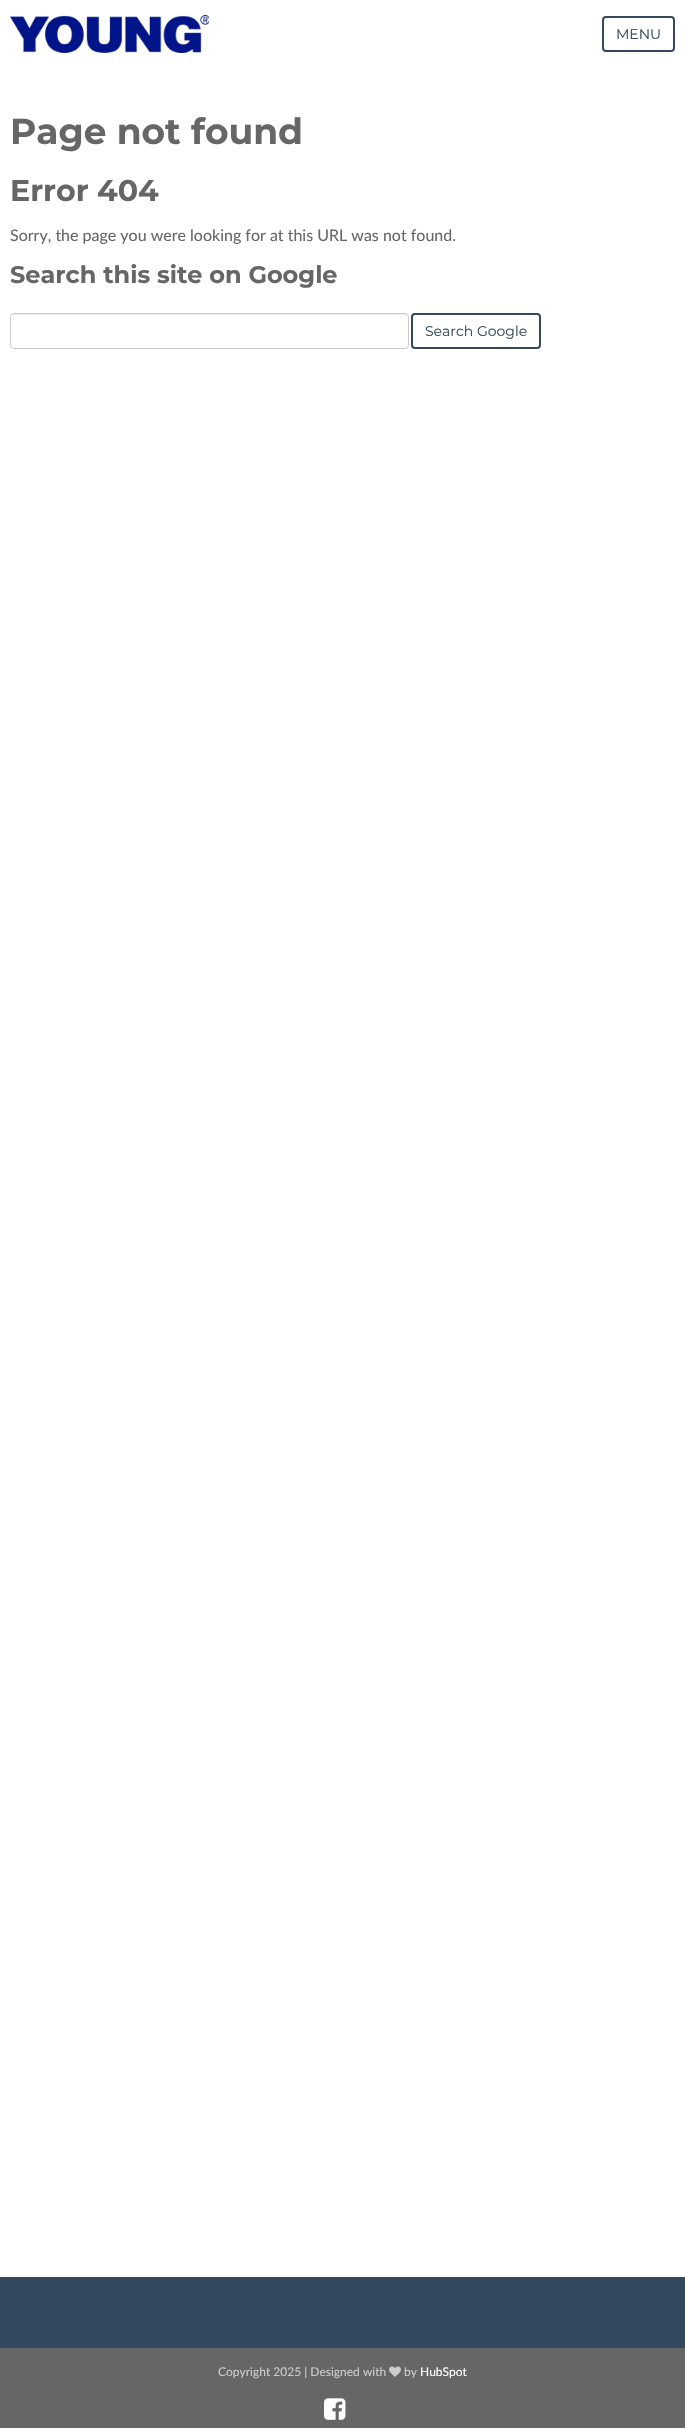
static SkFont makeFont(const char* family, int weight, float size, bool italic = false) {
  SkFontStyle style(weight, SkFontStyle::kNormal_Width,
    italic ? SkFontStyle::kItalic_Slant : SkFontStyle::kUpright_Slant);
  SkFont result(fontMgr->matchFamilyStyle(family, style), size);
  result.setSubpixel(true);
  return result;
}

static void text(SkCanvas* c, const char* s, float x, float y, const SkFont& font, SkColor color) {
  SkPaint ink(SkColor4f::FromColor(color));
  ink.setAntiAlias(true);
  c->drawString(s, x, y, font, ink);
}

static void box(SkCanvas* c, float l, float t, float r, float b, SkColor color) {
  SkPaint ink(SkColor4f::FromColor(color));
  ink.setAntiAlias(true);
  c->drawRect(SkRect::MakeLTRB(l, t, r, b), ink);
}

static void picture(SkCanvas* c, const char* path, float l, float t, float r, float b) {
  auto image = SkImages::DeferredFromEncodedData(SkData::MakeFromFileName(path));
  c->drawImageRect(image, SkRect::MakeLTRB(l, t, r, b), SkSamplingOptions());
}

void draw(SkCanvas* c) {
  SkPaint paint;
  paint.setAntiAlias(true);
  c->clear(0xffffffff);
  picture(c, "img_01.png", 10, 15, 209, 53);
  paint.setStyle(SkPaint::kStroke_Style);
  paint.setStrokeWidth(2);
  paint.setColor(0xff34495e);
  c->drawRoundRect(SkRect::MakeLTRB(603, 17, 674, 51), 3, 3, paint);
  SkFont face1 = makeFont("Montserrat", 400, 14);
  text(c, "MENU", 616, 39, face1, 0xff34495e);
  SkFont face2 = makeFont("Montserrat", 700, 36);
  text(c, "Page not found", 10, 144, face2, 0xff666666);
  SkFont face3 = makeFont("Montserrat", 700, 30);
  text(c, "Error 404", 10, 201, face3, 0xff666666);
  SkFont face4 = makeFont("Lato", 400, 16);
  text(c, "Sorry, the page you were looking for at this URL was not found.", 10, 241, face4, 0xff666666);
  SkFont face5 = makeFont("Montserrat", 700, 24);
  text(c, "Search this site on Google", 10, 283, face5, 0xff666666);
  paint.setStyle(SkPaint::kFill_Style);
  paint.setColor(0xffececec);
  c->drawPath(SkPathBuilder().moveTo(14, 315).lineTo(405, 315).cubicTo(407, 315, 408, 316, 408, 318).cubicTo(408, 316, 407, 314, 405, 314).lineTo(14, 314).lineTo(12, 315).lineTo(11, 318).cubicTo(11, 316, 12, 315, 14, 315).close().detach(), paint);
  paint.setStyle(SkPaint::kStroke_Style);
  paint.setStrokeWidth(1);
  paint.setColor(0xffcccccc);
  c->drawRoundRect(SkRect::MakeLTRB(10.5f, 313.5f, 408.5f, 348.5f), 3.5f, 3.5f, paint);
  paint.setStrokeWidth(2);
  paint.setColor(0xff34495e);
  c->drawRoundRect(SkRect::MakeLTRB(412, 314, 540, 348), 3, 3, paint);
  text(c, "Search Google", 425, 336, face1, 0xff34495e);
  box(c, 0, 2277, 685, 2348, 0xff34495e);
  box(c, 0, 2348, 685, 2428, 0xff666666);
  SkFont face6 = makeFont("Lato", 400, 12);
  text(c, "Copyright 2025 | Designed with", 218, 2376, face6, 0xffcccccc);
  picture(c, "img_02.png", 389, 2366, 401, 2377);
  text(c, "by", 404, 2376, face6, 0xffcccccc);
  text(c, "HubSpot", 420, 2376, face6, 0xffffffff);
  picture(c, "img_03.png", 324, 2398, 346, 2420);
}
